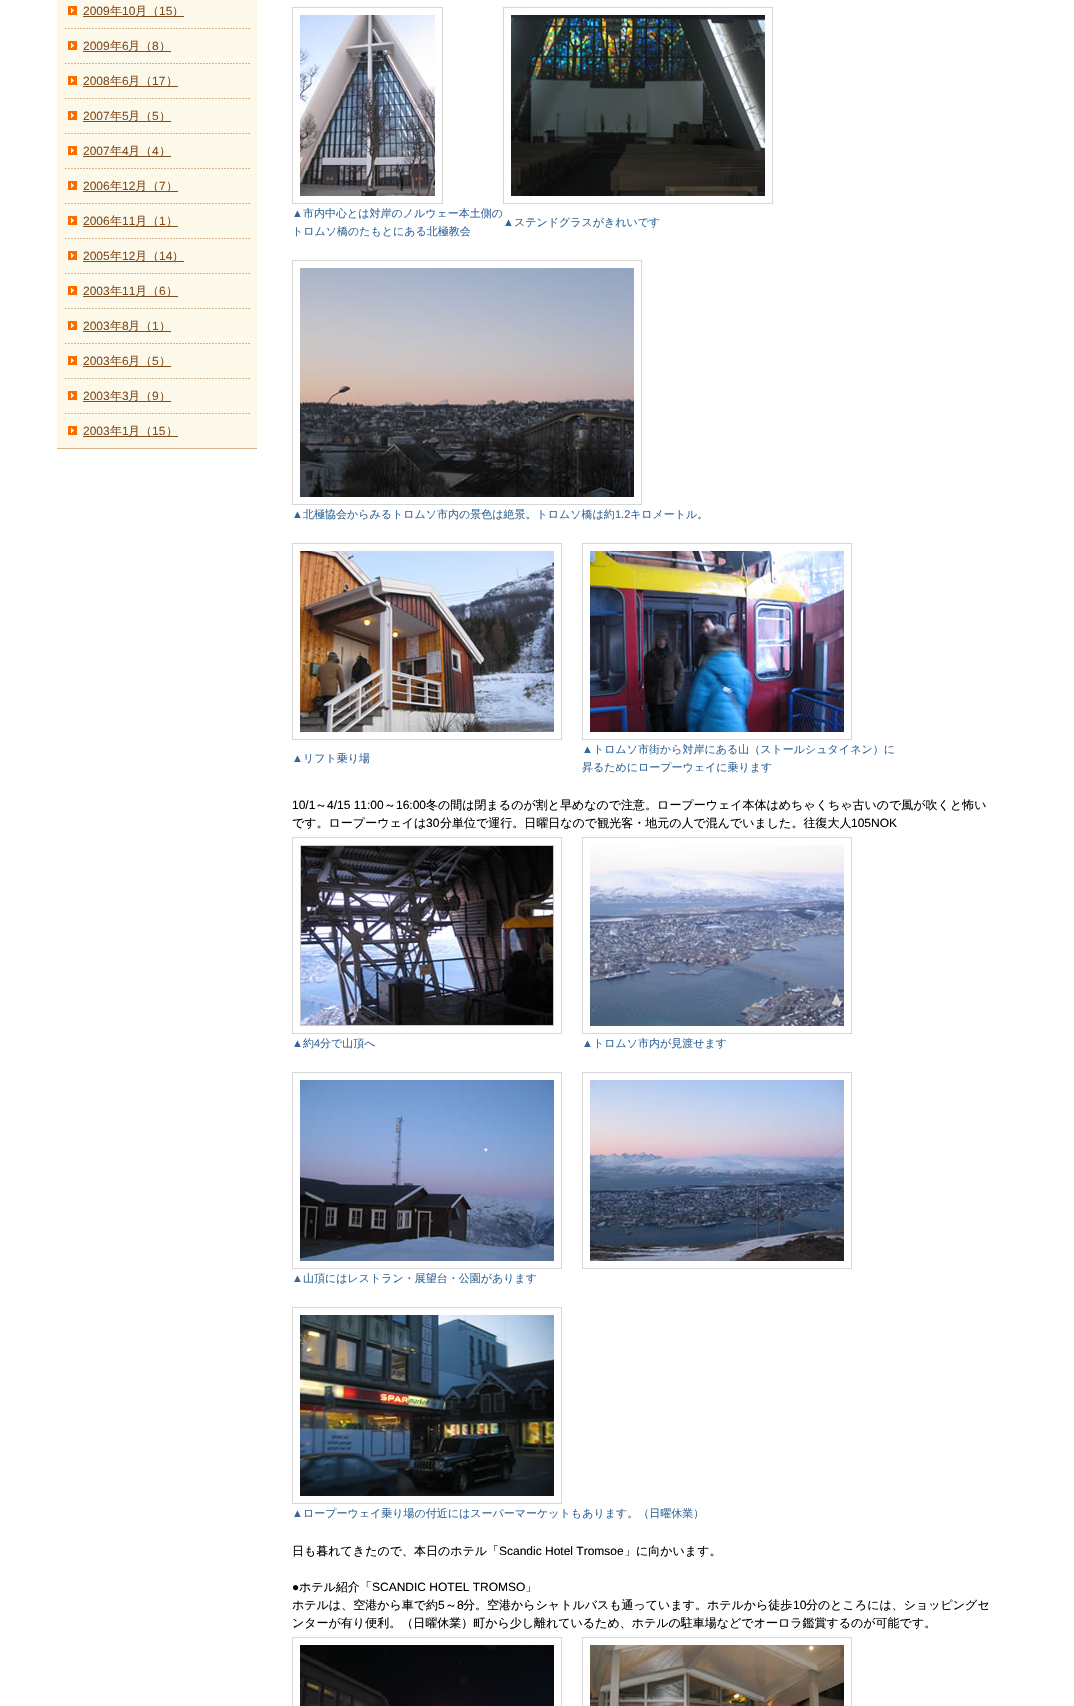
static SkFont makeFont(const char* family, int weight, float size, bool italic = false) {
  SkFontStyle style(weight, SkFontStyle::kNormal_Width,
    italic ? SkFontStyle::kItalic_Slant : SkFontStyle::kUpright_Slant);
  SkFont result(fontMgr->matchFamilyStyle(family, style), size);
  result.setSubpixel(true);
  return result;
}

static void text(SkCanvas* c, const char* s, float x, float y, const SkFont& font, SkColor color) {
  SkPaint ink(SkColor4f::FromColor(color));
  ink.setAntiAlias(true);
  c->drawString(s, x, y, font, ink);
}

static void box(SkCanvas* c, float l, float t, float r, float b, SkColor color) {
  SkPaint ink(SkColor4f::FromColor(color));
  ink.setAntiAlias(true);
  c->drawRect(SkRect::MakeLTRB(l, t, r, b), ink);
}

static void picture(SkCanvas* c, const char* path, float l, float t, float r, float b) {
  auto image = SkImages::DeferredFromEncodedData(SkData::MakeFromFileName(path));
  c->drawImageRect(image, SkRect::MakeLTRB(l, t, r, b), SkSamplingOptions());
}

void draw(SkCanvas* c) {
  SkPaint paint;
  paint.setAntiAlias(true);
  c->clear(0xffffffff);
  box(c, 57, 0, 257, 448, 0xfffdf9ea);
  box(c, 57, 448, 257, 449, 0xffd8b48d);
  picture(c, "img_01.png", 68, 6, 77, 15);
  SkFont face1 = makeFont("Liberation Sans", 400, 12);
  text(c, "2009", 83, 15, face1, 0xff814c20);
  box(c, 83, 16, 184, 17, 0xff814c20);
  SkFont face2 = makeFont("WenQuanYi Zen Hei", 500, 12);
  text(c, "年", 110, 15, face2, 0xff814c20);
  text(c, "10", 122, 15, face1, 0xff814c20);
  text(c, "月（", 135, 15, face2, 0xff814c20);
  text(c, "15", 159, 15, face1, 0xff814c20);
  text(c, "）", 172, 15, face2, 0xff814c20);
  picture(c, "img_02.png", 65, 28, 250, 29);
  picture(c, "img_01.png", 68, 41, 77, 50);
  text(c, "2009", 83, 50, face1, 0xff814c20);
  box(c, 83, 51, 171, 52, 0xff814c20);
  text(c, "年", 110, 50, face2, 0xff814c20);
  text(c, "6", 122, 50, face1, 0xff814c20);
  text(c, "月（", 128, 50, face2, 0xff814c20);
  text(c, "8", 152, 50, face1, 0xff814c20);
  text(c, "）", 159, 50, face2, 0xff814c20);
  picture(c, "img_02.png", 65, 63, 250, 64);
  picture(c, "img_01.png", 68, 76, 77, 85);
  text(c, "2008", 83, 85, face1, 0xff814c20);
  box(c, 83, 86, 178, 87, 0xff814c20);
  text(c, "年", 110, 85, face2, 0xff814c20);
  text(c, "6", 122, 85, face1, 0xff814c20);
  text(c, "月（", 128, 85, face2, 0xff814c20);
  text(c, "17", 152, 85, face1, 0xff814c20);
  text(c, "）", 166, 85, face2, 0xff814c20);
  picture(c, "img_02.png", 65, 98, 250, 99);
  picture(c, "img_01.png", 68, 111, 77, 120);
  text(c, "2007", 83, 120, face1, 0xff814c20);
  box(c, 83, 121, 171, 122, 0xff814c20);
  text(c, "年", 110, 120, face2, 0xff814c20);
  text(c, "5", 122, 120, face1, 0xff814c20);
  text(c, "月（", 128, 120, face2, 0xff814c20);
  text(c, "5", 152, 120, face1, 0xff814c20);
  text(c, "）", 159, 120, face2, 0xff814c20);
  picture(c, "img_02.png", 65, 133, 250, 134);
  picture(c, "img_01.png", 68, 146, 77, 155);
  text(c, "2007", 83, 155, face1, 0xff814c20);
  box(c, 83, 156, 171, 157, 0xff814c20);
  text(c, "年", 110, 155, face2, 0xff814c20);
  text(c, "4", 122, 155, face1, 0xff814c20);
  text(c, "月（", 128, 155, face2, 0xff814c20);
  text(c, "4", 152, 155, face1, 0xff814c20);
  text(c, "）", 159, 155, face2, 0xff814c20);
  picture(c, "img_02.png", 65, 168, 250, 169);
  picture(c, "img_01.png", 68, 181, 77, 190);
  text(c, "2006", 83, 190, face1, 0xff814c20);
  box(c, 83, 191, 178, 192, 0xff814c20);
  text(c, "年", 110, 190, face2, 0xff814c20);
  text(c, "12", 122, 190, face1, 0xff814c20);
  text(c, "月（", 135, 190, face2, 0xff814c20);
  text(c, "7", 159, 190, face1, 0xff814c20);
  text(c, "）", 166, 190, face2, 0xff814c20);
  picture(c, "img_02.png", 65, 203, 250, 204);
  picture(c, "img_01.png", 68, 216, 77, 225);
  text(c, "2006", 83, 225, face1, 0xff814c20);
  box(c, 83, 226, 178, 227, 0xff814c20);
  text(c, "年", 110, 225, face2, 0xff814c20);
  text(c, "11", 122, 225, face1, 0xff814c20);
  text(c, "月（", 135, 225, face2, 0xff814c20);
  text(c, "1", 159, 225, face1, 0xff814c20);
  text(c, "）", 166, 225, face2, 0xff814c20);
  picture(c, "img_02.png", 65, 238, 250, 239);
  picture(c, "img_01.png", 68, 251, 77, 260);
  text(c, "2005", 83, 260, face1, 0xff814c20);
  box(c, 83, 261, 184, 262, 0xff814c20);
  text(c, "年", 110, 260, face2, 0xff814c20);
  text(c, "12", 122, 260, face1, 0xff814c20);
  text(c, "月（", 135, 260, face2, 0xff814c20);
  text(c, "14", 159, 260, face1, 0xff814c20);
  text(c, "）", 172, 260, face2, 0xff814c20);
  picture(c, "img_02.png", 65, 273, 250, 274);
  picture(c, "img_01.png", 68, 286, 77, 295);
  text(c, "2003", 83, 295, face1, 0xff814c20);
  box(c, 83, 296, 178, 297, 0xff814c20);
  text(c, "年", 110, 295, face2, 0xff814c20);
  text(c, "11", 122, 295, face1, 0xff814c20);
  text(c, "月（", 135, 295, face2, 0xff814c20);
  text(c, "6", 159, 295, face1, 0xff814c20);
  text(c, "）", 166, 295, face2, 0xff814c20);
  picture(c, "img_02.png", 65, 308, 250, 309);
  picture(c, "img_01.png", 68, 321, 77, 330);
  text(c, "2003", 83, 330, face1, 0xff814c20);
  box(c, 83, 331, 171, 332, 0xff814c20);
  text(c, "年", 110, 330, face2, 0xff814c20);
  text(c, "8", 122, 330, face1, 0xff814c20);
  text(c, "月（", 128, 330, face2, 0xff814c20);
  text(c, "1", 152, 330, face1, 0xff814c20);
  text(c, "）", 159, 330, face2, 0xff814c20);
  picture(c, "img_02.png", 65, 343, 250, 344);
  picture(c, "img_01.png", 68, 356, 77, 365);
  text(c, "2003", 83, 365, face1, 0xff814c20);
  box(c, 83, 366, 171, 367, 0xff814c20);
  text(c, "年", 110, 365, face2, 0xff814c20);
  text(c, "6", 122, 365, face1, 0xff814c20);
  text(c, "月（", 128, 365, face2, 0xff814c20);
  text(c, "5", 152, 365, face1, 0xff814c20);
  text(c, "）", 159, 365, face2, 0xff814c20);
  picture(c, "img_02.png", 65, 378, 250, 379);
  picture(c, "img_01.png", 68, 391, 77, 400);
  text(c, "2003", 83, 400, face1, 0xff814c20);
  box(c, 83, 401, 171, 402, 0xff814c20);
  text(c, "年", 110, 400, face2, 0xff814c20);
  text(c, "3", 122, 400, face1, 0xff814c20);
  text(c, "月（", 128, 400, face2, 0xff814c20);
  text(c, "9", 152, 400, face1, 0xff814c20);
  text(c, "）", 159, 400, face2, 0xff814c20);
  picture(c, "img_02.png", 65, 413, 250, 414);
  picture(c, "img_01.png", 68, 426, 77, 435);
  text(c, "2003", 83, 435, face1, 0xff814c20);
  box(c, 83, 436, 178, 437, 0xff814c20);
  text(c, "年", 110, 435, face2, 0xff814c20);
  text(c, "1", 122, 435, face1, 0xff814c20);
  text(c, "月（", 128, 435, face2, 0xff814c20);
  text(c, "15", 152, 435, face1, 0xff814c20);
  text(c, "）", 166, 435, face2, 0xff814c20);
  paint.setStyle(SkPaint::kStroke_Style);
  paint.setStrokeWidth(1);
  paint.setColor(0xffd7d7d7);
  c->drawRect(SkRect::MakeLTRB(292.5f, 7.5f, 442.5f, 203.5f), paint);
  picture(c, "img_03.png", 300, 15, 435, 196);
  c->drawRect(SkRect::MakeLTRB(503.5f, 7.5f, 772.5f, 203.5f), paint);
  picture(c, "img_04.png", 511, 15, 765, 196);
  SkFont face3 = makeFont("Liberation Sans", 400, 11);
  text(c, "▲", 292, 217, face3, 0xff336699);
  SkFont face4 = makeFont("WenQuanYi Zen Hei", 500, 11);
  text(c, "市内中心とは対岸のノルウェー本土側の", 303, 217, face4, 0xff336699);
  text(c, "トロムソ橋のたもとにある北極教会", 292, 235, face4, 0xff336699);
  text(c, "▲", 503, 226, face3, 0xff336699);
  text(c, "ステンドグラスがきれいです", 514, 226, face4, 0xff336699);
  c->drawRect(SkRect::MakeLTRB(292.5f, 260.5f, 641.5f, 504.5f), paint);
  picture(c, "img_05.png", 300, 268, 634, 497);
  text(c, "▲", 292, 518, face3, 0xff336699);
  text(c, "北極協会からみるトロムソ市内の景色は絶景。トロムソ橋は約", 303, 518, face4, 0xff336699);
  text(c, "1.2", 615, 518, face3, 0xff336699);
  text(c, "キロメートル。", 630, 518, face4, 0xff336699);
  c->drawRect(SkRect::MakeLTRB(292.5f, 543.5f, 561.5f, 739.5f), paint);
  picture(c, "img_06.png", 300, 551, 554, 732);
  c->drawRect(SkRect::MakeLTRB(582.5f, 543.5f, 851.5f, 739.5f), paint);
  picture(c, "img_07.png", 590, 551, 844, 732);
  text(c, "▲", 292, 762, face3, 0xff336699);
  text(c, "リフト乗り場", 303, 762, face4, 0xff336699);
  text(c, "▲", 582, 753, face3, 0xff336699);
  text(c, "トロムソ市街から対岸にある山（ストールシュタイネン）に", 593, 753, face4, 0xff336699);
  text(c, "昇るためにロープーウェイに乗ります", 582, 771, face4, 0xff336699);
  text(c, "10/1", 292, 809, face1, 0xff000000);
  text(c, "～", 315, 809, face2, 0xff000000);
  text(c, "4/15 11:00", 327, 809, face1, 0xff000000);
  text(c, "～", 384, 809, face2, 0xff000000);
  text(c, "16:00", 396, 809, face1, 0xff000000);
  text(c, "冬の間は閉まるのが割と早めなので注意。ロープーウェイ本体はめちゃくちゃ古いので風が吹くと怖い", 426, 809, face2, 0xff000000);
  text(c, "です。ロープーウェイは", 292, 827, face2, 0xff000000);
  text(c, "30", 426, 827, face1, 0xff000000);
  text(c, "分単位で運行。日曜日なので観光客・地元の人で混んでいました。往復大人", 440, 827, face2, 0xff000000);
  text(c, "105NOK", 851, 827, face1, 0xff000000);
  c->drawRect(SkRect::MakeLTRB(292.5f, 837.5f, 561.5f, 1033.5f), paint);
  picture(c, "img_08.png", 300, 845, 554, 1026);
  c->drawRect(SkRect::MakeLTRB(582.5f, 837.5f, 851.5f, 1033.5f), paint);
  picture(c, "img_09.png", 590, 845, 844, 1026);
  text(c, "▲", 292, 1047, face3, 0xff336699);
  text(c, "約", 303, 1047, face4, 0xff336699);
  text(c, "4", 314, 1047, face3, 0xff336699);
  text(c, "分で山頂へ", 320, 1047, face4, 0xff336699);
  text(c, "▲", 582, 1047, face3, 0xff336699);
  text(c, "トロムソ市内が見渡せます", 593, 1047, face4, 0xff336699);
  c->drawRect(SkRect::MakeLTRB(292.5f, 1072.5f, 561.5f, 1268.5f), paint);
  picture(c, "img_10.png", 300, 1080, 554, 1261);
  c->drawRect(SkRect::MakeLTRB(582.5f, 1072.5f, 851.5f, 1268.5f), paint);
  picture(c, "img_11.png", 590, 1080, 844, 1261);
  text(c, "▲", 292, 1282, face3, 0xff336699);
  text(c, "山頂にはレストラン・展望台・公園があります", 303, 1282, face4, 0xff336699);
  c->drawRect(SkRect::MakeLTRB(292.5f, 1307.5f, 561.5f, 1503.5f), paint);
  picture(c, "img_12.png", 300, 1315, 554, 1496);
  text(c, "▲", 292, 1517, face3, 0xff336699);
  text(c, "ロープーウェイ乗り場の付近にはスーパーマーケットもあります。（日曜休業）", 303, 1517, face4, 0xff336699);
  text(c, "日も暮れてきたので、本日のホテル「", 292, 1555, face2, 0xff000000);
  text(c, "Scandic Hotel Tromsoe", 499, 1555, face1, 0xff000000);
  text(c, "」に向かいます。", 624, 1555, face2, 0xff000000);
  text(c, "●", 292, 1591, face1, 0xff000000);
  text(c, "ホテル紹介「", 299, 1591, face2, 0xff000000);
  text(c, "SCANDIC HOTEL TROMSO", 372, 1591, face1, 0xff000000);
  text(c, "」", 525, 1591, face2, 0xff000000);
  text(c, "ホテルは、空港から車で約", 292, 1609, face2, 0xff000000);
  text(c, "5", 438, 1609, face1, 0xff000000);
  text(c, "～", 445, 1609, face2, 0xff000000);
  text(c, "8", 457, 1609, face1, 0xff000000);
  text(c, "分。空港からシャトルバスも通っています。ホテルから徒歩", 463, 1609, face2, 0xff000000);
  text(c, "10", 793, 1609, face1, 0xff000000);
  text(c, "分のところには、ショッピングセ", 806, 1609, face2, 0xff000000);
  text(c, "ンターが有り便利。（日曜休業）町から少し離れているため、ホテルの駐車場などでオーロラ鑑賞するのが可能です。", 292, 1627, face2, 0xff000000);
  c->drawRect(SkRect::MakeLTRB(292.5f, 1637.5f, 561.5f, 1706.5f), paint);
  picture(c, "img_13.png", 300, 1645, 554, 1706);
  c->drawRect(SkRect::MakeLTRB(582.5f, 1637.5f, 851.5f, 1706.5f), paint);
  picture(c, "img_14.png", 590, 1645, 844, 1706);
}
